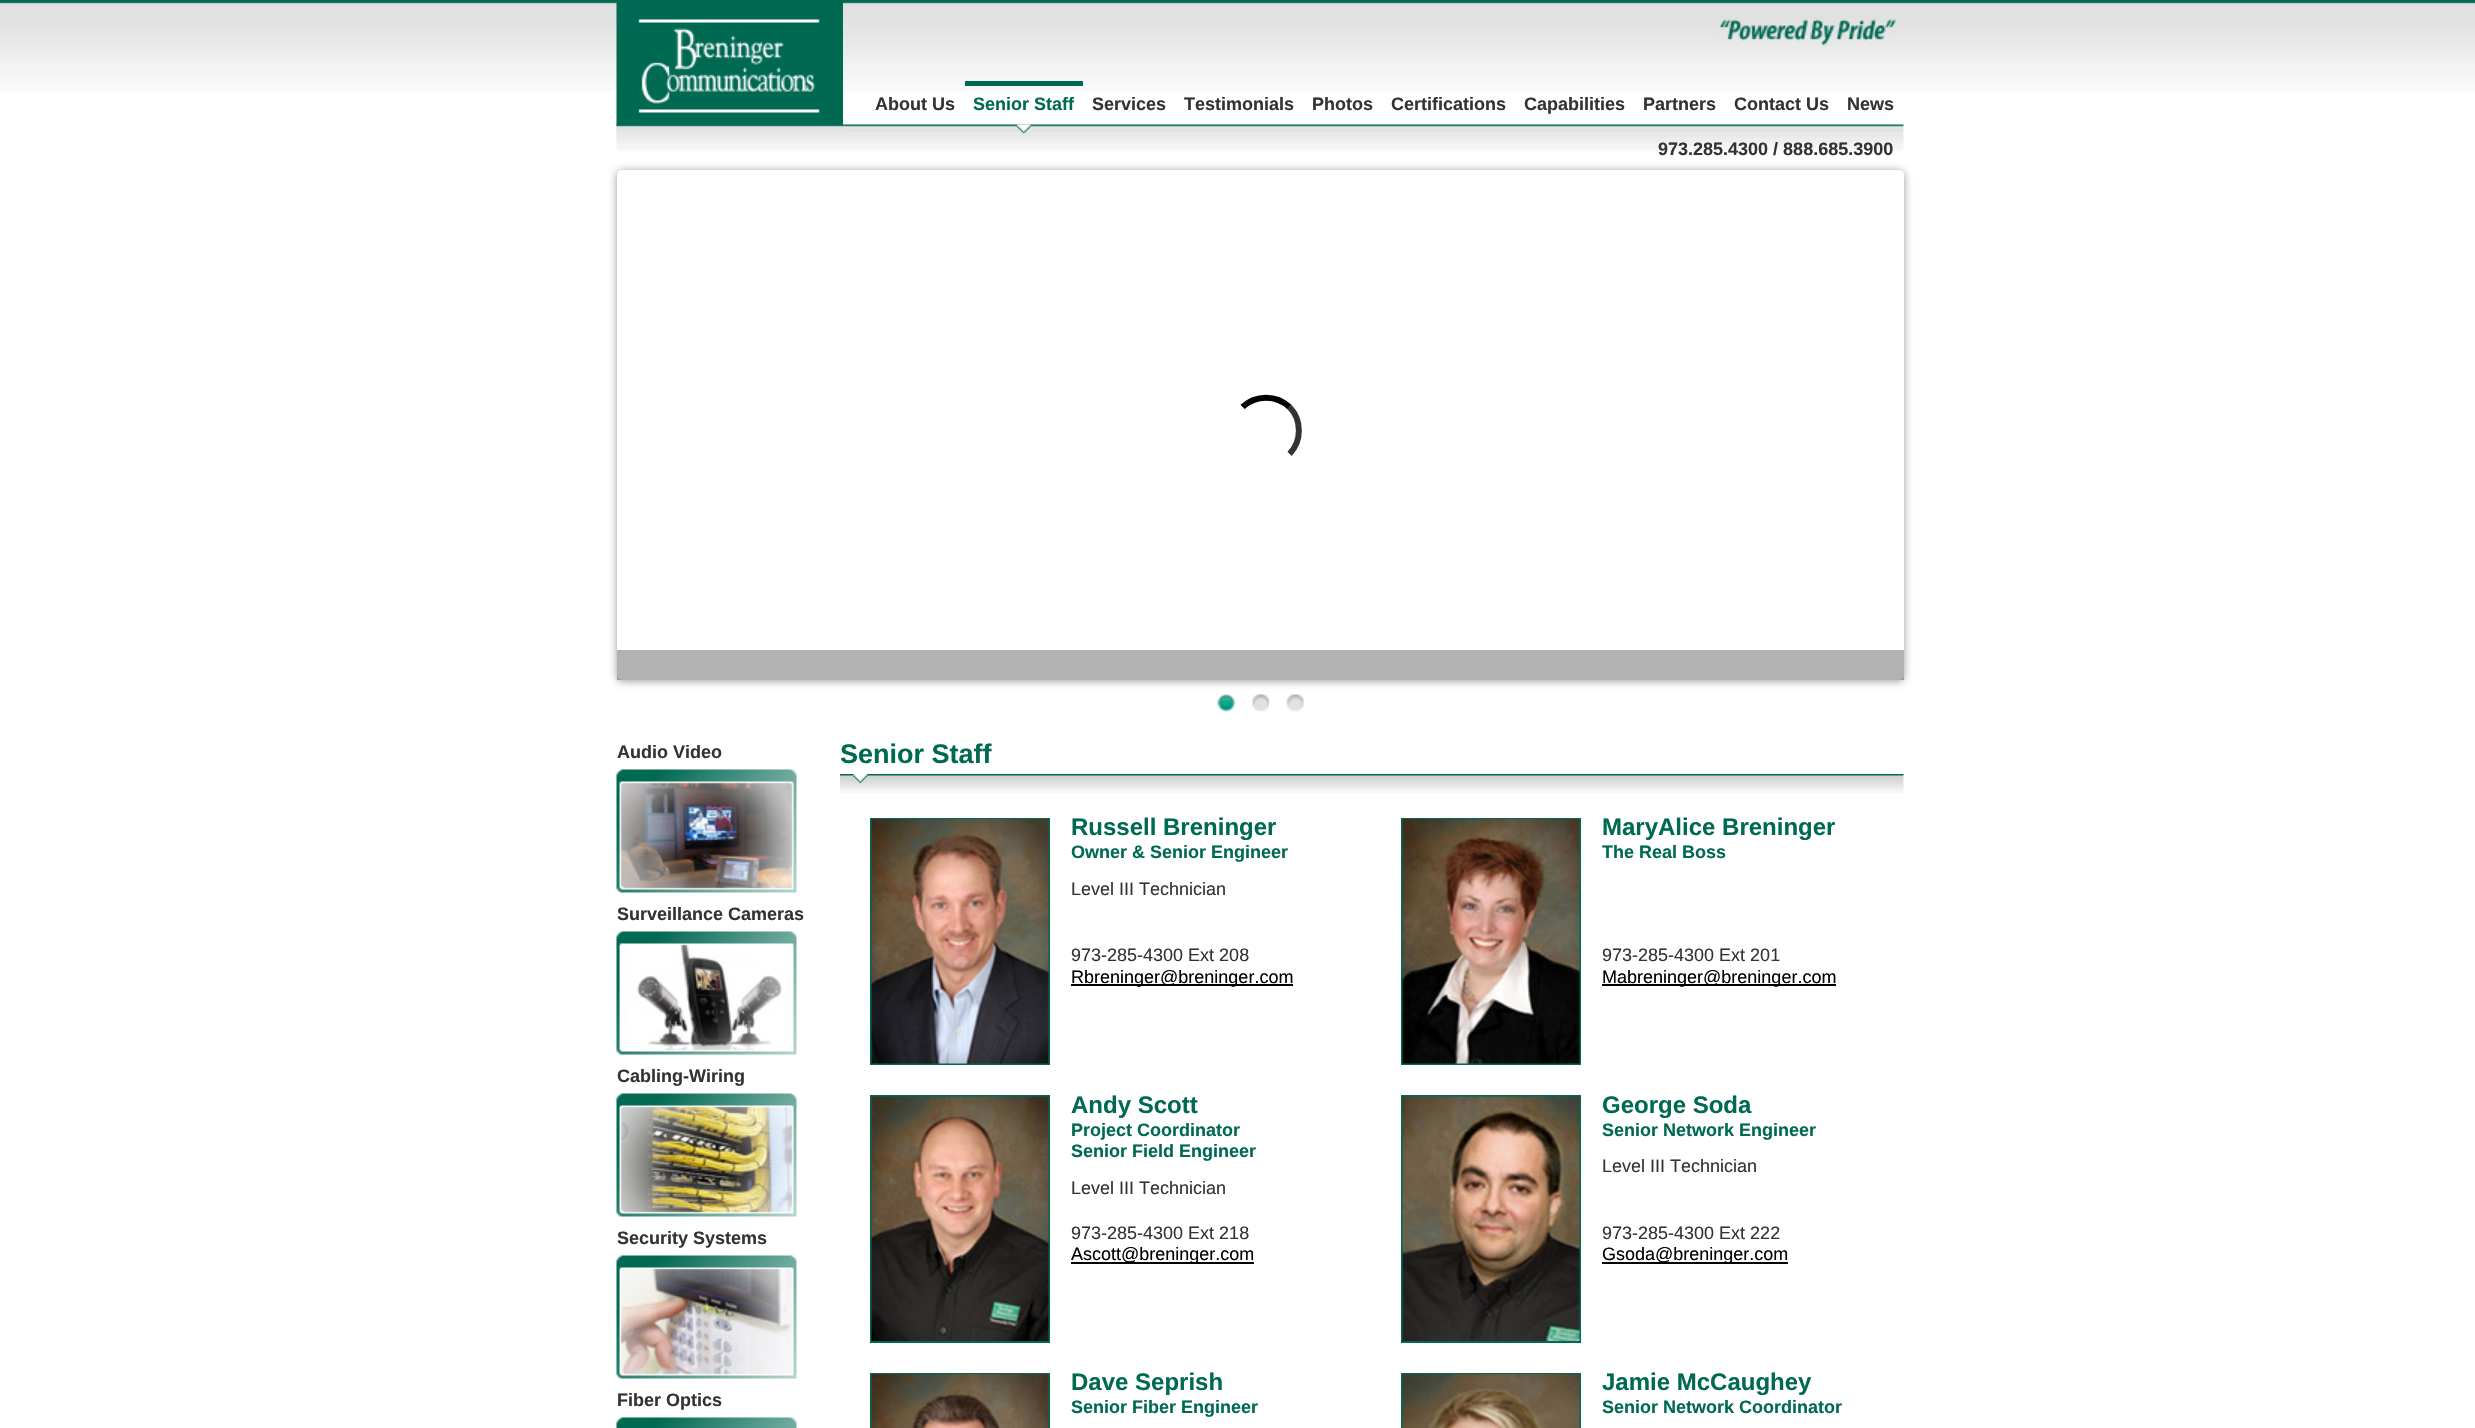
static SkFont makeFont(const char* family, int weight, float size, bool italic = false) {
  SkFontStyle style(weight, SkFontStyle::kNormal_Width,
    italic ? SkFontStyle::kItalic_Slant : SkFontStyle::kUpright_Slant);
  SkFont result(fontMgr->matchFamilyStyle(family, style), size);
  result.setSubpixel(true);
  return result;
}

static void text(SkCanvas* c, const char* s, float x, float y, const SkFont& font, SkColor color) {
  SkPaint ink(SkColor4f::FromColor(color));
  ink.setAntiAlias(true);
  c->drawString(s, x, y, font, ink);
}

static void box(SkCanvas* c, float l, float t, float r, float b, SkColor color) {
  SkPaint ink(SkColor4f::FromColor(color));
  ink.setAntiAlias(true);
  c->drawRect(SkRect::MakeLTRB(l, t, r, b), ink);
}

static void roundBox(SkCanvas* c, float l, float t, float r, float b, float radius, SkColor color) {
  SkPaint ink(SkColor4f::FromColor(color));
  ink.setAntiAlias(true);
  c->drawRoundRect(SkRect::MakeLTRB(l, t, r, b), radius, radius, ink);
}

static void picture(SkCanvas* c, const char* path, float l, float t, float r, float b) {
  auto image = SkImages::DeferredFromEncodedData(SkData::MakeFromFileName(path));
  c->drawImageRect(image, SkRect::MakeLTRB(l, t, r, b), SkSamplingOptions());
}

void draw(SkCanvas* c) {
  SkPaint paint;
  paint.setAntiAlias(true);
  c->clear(0xffffffff);
  picture(c, "img_01.png", 0, 0, 2475, 92);
  picture(c, "img_02.png", 616, 124, 1904, 134);
  picture(c, "img_03.png", 616, 2, 843, 134);
  picture(c, "img_04.png", 1719, 19, 1897, 46);
  SkFont face1 = makeFont("Liberation Sans", 700, 18);
  text(c, "About Us", 875, 110, face1, 0xff333333);
  picture(c, "img_05.png", 1017, 124, 1031, 134);
  box(c, 965, 81, 1083, 86, 0xff006952);
  text(c, "Senior Staff", 973, 110, face1, 0xff006952);
  text(c, "Services", 1092, 110, face1, 0xff333333);
  text(c, "Testimonials", 1184, 110, face1, 0xff333333);
  text(c, "Photos", 1312, 110, face1, 0xff333333);
  text(c, "Certifications", 1391, 110, face1, 0xff333333);
  text(c, "Capabilities", 1524, 110, face1, 0xff333333);
  text(c, "Partners", 1643, 110, face1, 0xff333333);
  text(c, "Contact Us", 1734, 110, face1, 0xff333333);
  text(c, "News", 1847, 110, face1, 0xff333333);
  picture(c, "img_06.png", 616, 133, 1904, 151);
  text(c, "973.285.4300 / 888.685.3900", 1658, 155, face1, 0xff333333);
  paint.setColor(0xff999999);
  paint.setMaskFilter(SkMaskFilter::MakeBlur(kNormal_SkBlurStyle, 4));
  c->drawRoundRect(SkRect::MakeLTRB(617, 171, 1904, 681), 5, 5, paint);
  paint.setMaskFilter(nullptr);
  roundBox(c, 617, 170, 1904, 680, 5, 0xffffffff);
  paint.setStyle(SkPaint::kStroke_Style);
  paint.setStrokeWidth(6);
  paint.setColor(0xff000000);
  c->drawPath(SkPathBuilder().moveTo(1242.5f, 407).cubicTo(1255.5f, 394.5f, 1276.5f, 394.5f, 1289.5f, 407).detach(), paint);
  paint.setColor(0xcc000000);
  c->drawPath(SkPathBuilder().moveTo(1289.5f, 407).cubicTo(1302, 420, 1302, 441, 1289.5f, 454).detach(), paint);
  paint.setColor(0xccffffff);
  c->drawPath(SkPathBuilder().moveTo(1289.5f, 454).cubicTo(1266.5f, 476.5f, 1227.5f, 455.5f, 1233.5f, 424).cubicTo(1235, 417.5f, 1238, 412, 1242.5f, 407).detach(), paint);
  box(c, 617, 650, 1904, 680, 0x4d000000);
  picture(c, "img_07.png", 1217, 694, 1235, 712);
  picture(c, "img_08.png", 1252, 694, 1269, 712);
  picture(c, "img_09.png", 1286, 694, 1304, 712);
  picture(c, "img_10.png", 616, 769, 797, 893);
  text(c, "Audio Video", 617, 758, face1, 0xff333333);
  picture(c, "img_11.png", 616, 931, 797, 1055);
  text(c, "Surveillance Cameras", 617, 920, face1, 0xff333333);
  picture(c, "img_12.png", 616, 1093, 797, 1217);
  text(c, "Cabling-Wiring", 617, 1082, face1, 0xff333333);
  picture(c, "img_13.png", 616, 1255, 797, 1379);
  text(c, "Security Systems", 617, 1244, face1, 0xff333333);
  picture(c, "img_14.png", 616, 1417, 797, 1428);
  text(c, "Fiber Optics", 617, 1406, face1, 0xff333333);
  picture(c, "img_15.png", 840, 774, 1904, 793);
  picture(c, "img_16.png", 853, 774, 867, 784);
  SkFont face2 = makeFont("Liberation Sans", 700, 27);
  text(c, "Senior Staff", 840, 763, face2, 0xff006952);
  paint.setStrokeWidth(2);
  paint.setColor(0xff006952);
  c->drawRect(SkRect::MakeLTRB(871, 819, 1049, 1064), paint);
  picture(c, "img_17.png", 871, 819, 1049, 1064);
  SkFont face3 = makeFont("Liberation Sans", 700, 24);
  text(c, "Russell Breninger", 1071, 835, face3, 0xff006952);
  text(c, "Owner & Senior Engineer", 1071, 858, face1, 0xff006952);
  SkFont face4 = makeFont("Liberation Sans", 400, 18);
  text(c, "Level III Technician", 1071, 895, face4, 0xff333333);
  text(c, "973-285-4300 Ext 208", 1071, 961, face4, 0xff333333);
  box(c, 1071, 984, 1293, 986, 0xff000000);
  text(c, "Rbreninger@breninger.com", 1071, 983, face4, 0xff000000);
  c->drawRect(SkRect::MakeLTRB(1402, 819, 1580, 1064), paint);
  picture(c, "img_18.png", 1402, 819, 1580, 1064);
  text(c, "MaryAlice Breninger", 1602, 835, face3, 0xff006952);
  text(c, "The Real Boss", 1602, 858, face1, 0xff006952);
  text(c, "973-285-4300 Ext 201", 1602, 961, face4, 0xff333333);
  box(c, 1602, 984, 1836, 986, 0xff000000);
  text(c, "Mabreninger@breninger.com", 1602, 983, face4, 0xff000000);
  c->drawRect(SkRect::MakeLTRB(871, 1096, 1049, 1342), paint);
  picture(c, "img_19.png", 871, 1096, 1049, 1341);
  text(c, "Andy Scott", 1071, 1113, face3, 0xff006952);
  text(c, "Project Coordinator", 1071, 1136, face1, 0xff006952);
  text(c, "Senior Field Engineer", 1071, 1157, face1, 0xff006952);
  text(c, "Level III Technician", 1071, 1194, face4, 0xff333333);
  text(c, "973-285-4300 Ext 218", 1071, 1239, face4, 0xff333333);
  box(c, 1071, 1262, 1254, 1264, 0xff000000);
  text(c, "Ascott@breninger.com", 1071, 1260, face4, 0xff000000);
  c->drawRect(SkRect::MakeLTRB(1402, 1096, 1580, 1342), paint);
  picture(c, "img_20.png", 1402, 1096, 1580, 1341);
  text(c, "George Soda", 1602, 1113, face3, 0xff006952);
  text(c, "Senior Network Engineer", 1602, 1136, face1, 0xff006952);
  text(c, "Level III Technician", 1602, 1172, face4, 0xff333333);
  text(c, "973-285-4300 Ext 222", 1602, 1239, face4, 0xff333333);
  box(c, 1602, 1262, 1788, 1264, 0xff000000);
  text(c, "Gsoda@breninger.com", 1602, 1260, face4, 0xff000000);
  c->drawRect(SkRect::MakeLTRB(871, 1374, 1049, 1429), paint);
  picture(c, "img_21.png", 871, 1374, 1049, 1428);
  text(c, "Dave Seprish", 1071, 1390, face3, 0xff006952);
  text(c, "Senior Fiber Engineer", 1071, 1413, face1, 0xff006952);
  c->drawRect(SkRect::MakeLTRB(1402, 1374, 1580, 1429), paint);
  picture(c, "img_22.png", 1402, 1374, 1580, 1428);
  text(c, "Jamie McCaughey", 1602, 1390, face3, 0xff006952);
  text(c, "Senior Network Coordinator", 1602, 1413, face1, 0xff006952);
}
